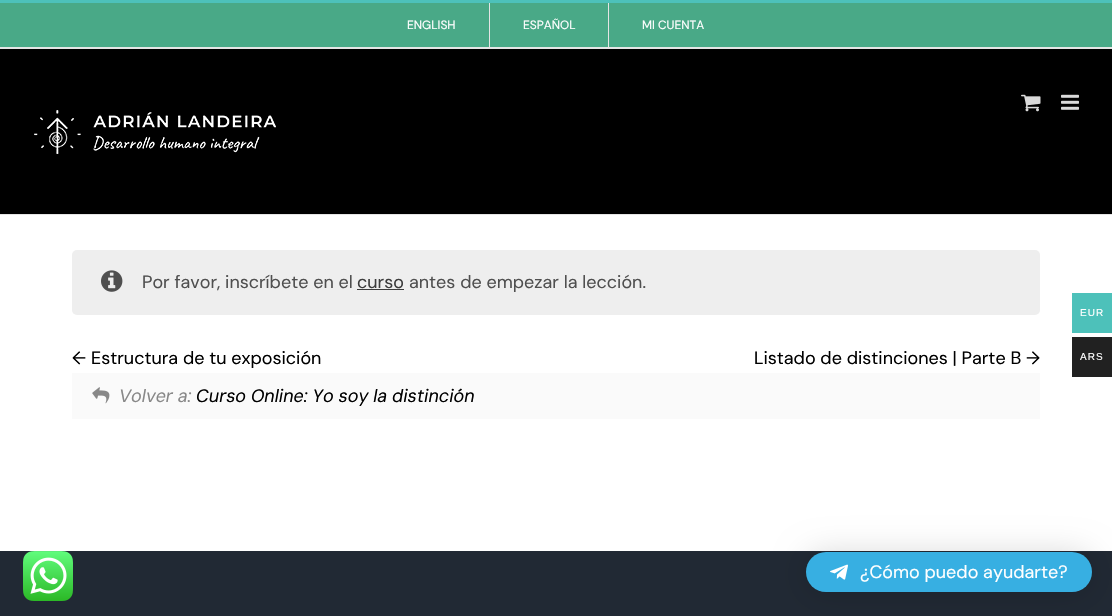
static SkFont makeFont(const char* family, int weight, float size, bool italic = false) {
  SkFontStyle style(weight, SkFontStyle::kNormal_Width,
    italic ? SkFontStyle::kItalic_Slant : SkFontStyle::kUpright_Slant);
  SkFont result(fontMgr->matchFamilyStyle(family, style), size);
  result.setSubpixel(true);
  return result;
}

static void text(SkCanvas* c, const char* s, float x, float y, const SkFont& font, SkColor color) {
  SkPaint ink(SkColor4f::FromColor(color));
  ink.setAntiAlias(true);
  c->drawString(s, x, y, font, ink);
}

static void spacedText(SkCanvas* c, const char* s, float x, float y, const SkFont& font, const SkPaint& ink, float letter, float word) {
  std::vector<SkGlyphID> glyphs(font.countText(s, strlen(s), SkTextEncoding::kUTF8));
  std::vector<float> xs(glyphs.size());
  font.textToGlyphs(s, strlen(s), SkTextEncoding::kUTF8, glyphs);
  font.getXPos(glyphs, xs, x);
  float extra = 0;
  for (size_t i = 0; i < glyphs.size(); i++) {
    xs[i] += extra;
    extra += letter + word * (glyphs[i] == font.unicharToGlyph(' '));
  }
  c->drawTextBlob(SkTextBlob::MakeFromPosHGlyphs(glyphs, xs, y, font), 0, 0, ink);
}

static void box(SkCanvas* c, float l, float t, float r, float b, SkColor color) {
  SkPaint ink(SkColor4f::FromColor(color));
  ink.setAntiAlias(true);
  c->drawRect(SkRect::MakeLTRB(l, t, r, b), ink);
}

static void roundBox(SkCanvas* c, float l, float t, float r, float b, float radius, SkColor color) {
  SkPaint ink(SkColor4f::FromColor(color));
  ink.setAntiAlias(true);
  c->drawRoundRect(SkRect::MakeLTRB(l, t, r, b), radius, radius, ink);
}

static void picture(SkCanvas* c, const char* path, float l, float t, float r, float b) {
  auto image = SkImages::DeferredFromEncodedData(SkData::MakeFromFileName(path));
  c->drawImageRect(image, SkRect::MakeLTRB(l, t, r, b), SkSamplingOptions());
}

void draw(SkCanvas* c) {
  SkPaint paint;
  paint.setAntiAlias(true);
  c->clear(0xffffffff);
  box(c, 0, 3, 1112, 47, 0xff49a987);
  box(c, 0, 0, 1112, 3, 0xff4dc1ba);
  box(c, 0, 47, 1112, 49, 0xffe5e5e5);
  SkFont face1 = makeFont("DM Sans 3", 400, 12);
  text(c, "ENGLISH", 407, 29, face1, 0xffffffff);
  box(c, 489, 3, 490, 47, 0xffe5e5e5);
  text(c, "ESPAÑOL", 523, 29, face1, 0xffffffff);
  box(c, 608, 3, 609, 47, 0xffe5e5e5);
  text(c, "MI CUENTA", 642, 29, face1, 0xffffffff);
  box(c, 0, 49, 1112, 214, 0xff000000);
  box(c, 0, 214, 1112, 215, 0xffe5e5e5);
  picture(c, "img_01.png", 1021, 94, 1041, 112);
  picture(c, "img_02.png", 1061, 94, 1079, 110);
  picture(c, "img_03.png", 34, 110, 276, 154);
  roundBox(c, 72, 250, 1040, 315, 5, 0xffeeeeee);
  picture(c, "img_04.png", 101, 270, 123, 292);
  SkFont face2 = makeFont("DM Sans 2", 400, 18);
  text(c, "Por favor, inscríbete en el", 142, 288, face2, 0xff4f4f4f);
  text(c, "curso", 357, 288, face2, 0xff3c3c3c);
  box(c, 357, 289, 404, 290, 0xff3c3c3c);
  text(c, "antes de empezar la lección.", 409, 288, face2, 0xff4f4f4f);
  SkFont face3 = makeFont("DM Sans", 400, 18);
  text(c, "←", 72, 364, face3, 0xff000000);
  text(c, "Estructura de tu exposición", 91, 364, face2, 0xff000000);
  text(c, "Listado de distinciones | Parte B →", 754, 364, face2, 0xff000000);
  box(c, 72, 373, 1040, 419, 0xfffafafa);
  picture(c, "img_05.png", 92, 387, 110, 404);
  SkFont face4 = makeFont("DM Sans", 400, 18, true);
  text(c, "Volver a:", 119, 402, face4, 0xff888888);
  text(c, "Curso Online: Yo soy la distinción", 196, 402, face4, 0xff000000);
  box(c, 0, 551, 1112, 616, 0xff212934);
  box(c, 1072, 293, 1112, 333, 0xff4dc1ba);
  SkFont face5 = makeFont("Liberation Sans", 400, 10);
  paint.setColor(0xffffffff);
  spacedText(c, "EUR", 1080, 316, face5, paint, 1, 0);
  box(c, 1072, 337, 1112, 377, 0xff212121);
  spacedText(c, "ARS", 1080, 360, face5, paint, 1, 0);
  picture(c, "img_06.png", 23, 551, 73, 601);
  paint.setColor(0x29000000);
  paint.setMaskFilter(SkMaskFilter::MakeBlur(kNormal_SkBlurStyle, 16));
  c->drawRoundRect(SkRect::MakeLTRB(806, 554, 1092, 594), 20, 20, paint);
  paint.setMaskFilter(nullptr);
  roundBox(c, 806, 552, 1092, 592, 20, 0xff37afe2);
  picture(c, "img_07.png", 830, 564, 848, 580);
  text(c, "¿Cómo puedo ayudarte?", 860, 578, face2, 0xffffffff);
}
